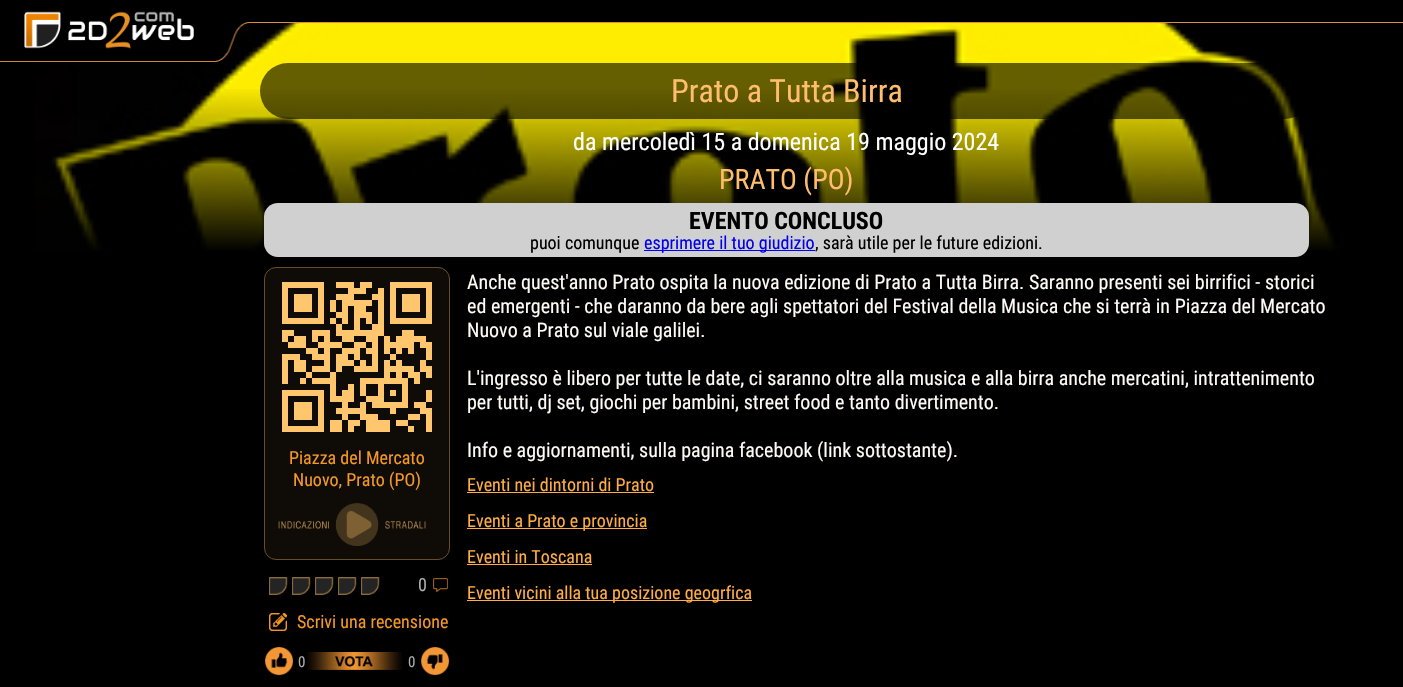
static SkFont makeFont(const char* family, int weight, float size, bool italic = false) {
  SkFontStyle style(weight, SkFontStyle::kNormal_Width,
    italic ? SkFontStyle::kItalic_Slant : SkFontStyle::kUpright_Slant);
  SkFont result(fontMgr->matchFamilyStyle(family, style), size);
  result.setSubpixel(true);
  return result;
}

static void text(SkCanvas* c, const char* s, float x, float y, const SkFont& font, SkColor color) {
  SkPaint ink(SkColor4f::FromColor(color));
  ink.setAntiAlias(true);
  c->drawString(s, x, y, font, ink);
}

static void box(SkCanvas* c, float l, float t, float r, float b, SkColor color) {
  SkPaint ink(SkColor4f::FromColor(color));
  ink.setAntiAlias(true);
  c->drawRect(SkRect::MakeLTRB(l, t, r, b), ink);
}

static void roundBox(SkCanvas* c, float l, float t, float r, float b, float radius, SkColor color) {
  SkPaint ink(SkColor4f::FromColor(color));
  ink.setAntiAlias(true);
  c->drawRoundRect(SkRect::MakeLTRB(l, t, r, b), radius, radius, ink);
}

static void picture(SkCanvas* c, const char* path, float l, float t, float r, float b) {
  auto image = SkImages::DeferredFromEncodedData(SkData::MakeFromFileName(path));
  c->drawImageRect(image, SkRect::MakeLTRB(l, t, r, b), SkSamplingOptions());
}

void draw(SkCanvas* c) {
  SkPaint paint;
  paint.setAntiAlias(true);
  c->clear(0xff000000);
  box(c, 249, 22, 1403, 23, 0xffdb8e3c);
  picture(c, "img_03.png", 35, 23, 1339, 251);
  picture(c, "img_02.png", 0, 22, 249, 62);
  picture(c, "img_01.png", 24, 11, 194, 49);
  {
    const SkColor colors[] = {0x00000000, 0xff000000};
    const float stops[] = {0.34f, 1};
    const SkPoint ends[] = {{702, 0}, {702, 252}};
    paint.setShader(SkGradientShader::MakeLinear(ends, colors, stops, 2, SkTileMode::kClamp));
    paint.setAlpha(255);
  }
  c->drawRect(SkRect::MakeLTRB(35, 89, 1339, 251), paint);
  roundBox(c, 260, 63, 1313, 119, 28, 0x99000000);
  SkFont face1 = makeFont("Roboto Condensed", 400, 32);
  text(c, "Prato a Tutta Birra", 671, 102, face1, 0xffffbd6d);
  SkFont face2 = makeFont("Roboto Condensed", 400, 24);
  text(c, "da mercoledì 15 a domenica 19 maggio 2024", 573, 150, face2, 0xffffffff);
  SkFont face3 = makeFont("Roboto Condensed", 400, 28);
  text(c, "PRATO (PO)", 719, 189, face3, 0xffffbd6d);
  roundBox(c, 264, 203, 1309, 257, 14, 0xffd0d0d0);
  SkFont face4 = makeFont("Roboto Condensed", 700, 24);
  text(c, "EVENTO CONCLUSO", 689, 229, face4, 0xff000000);
  SkFont face5 = makeFont("Roboto Condensed", 400, 18);
  text(c, "puoi comunque", 530, 249, face5, 0xff000000);
  box(c, 644, 250, 815, 251, 0xff0000ee);
  text(c, "esprimere il tuo giudizio", 644, 249, face5, 0xff0000ee);
  text(c, ", sarà utile per le future edizioni.", 815, 249, face5, 0xff000000);
  paint.setShader(nullptr);
  paint.setColor(0xff0f0c07);
  c->drawRoundRect(SkRect::MakeLTRB(264.5f, 267.5f, 449.5f, 559.5f), 11.5f, 11.5f, paint);
  paint.setStyle(SkPaint::kStroke_Style);
  paint.setStrokeWidth(1);
  paint.setColor(0xff664e28);
  c->drawRoundRect(SkRect::MakeLTRB(264.5f, 267.5f, 449.5f, 559.5f), 11.5f, 11.5f, paint);
  picture(c, "img_04.png", 282, 282, 432, 432);
  text(c, "Piazza del Mercato", 289, 464, face5, 0xfff49826);
  text(c, "Nuovo, Prato (PO)", 293, 486, face5, 0xfff49826);
  picture(c, "img_05.png", 278, 503, 426, 546);
  picture(c, "img_06.png", 269, 577, 288, 595);
  picture(c, "img_06.png", 292, 577, 311, 595);
  picture(c, "img_06.png", 315, 577, 334, 595);
  picture(c, "img_06.png", 338, 577, 357, 595);
  picture(c, "img_06.png", 361, 577, 380, 595);
  text(c, "0", 418, 591, face5, 0xffaeaeae);
  picture(c, "img_07.png", 433, 578, 448, 592);
  picture(c, "img_08.png", 269, 613, 287, 631);
  text(c, "Scrivi una recensione", 297, 628, face5, 0xfff49826);
  picture(c, "img_09.png", 307, 652, 402, 670);
  picture(c, "img_10.png", 265, 646, 294, 676);
  SkFont face6 = makeFont("Roboto Condensed", 400, 15);
  text(c, "0", 298, 667, face6, 0xffaeaeae);
  text(c, "0", 408, 667, face6, 0xffaeaeae);
  picture(c, "img_11.png", 421, 647, 450, 676);
  SkFont face7 = makeFont("Roboto Condensed", 400, 20);
  text(c, "Anche quest'anno Prato ospita la nuova edizione di Prato a Tutta Birra. Saranno presenti sei birrifici - storici", 467, 289, face7, 0xfffffbf6);
  text(c, "ed emergenti - che daranno da bere agli spettatori del Festival della Musica che si terrà in Piazza del Mercato", 467, 313, face7, 0xfffffbf6);
  text(c, "Nuovo a Prato sul viale galilei.", 467, 337, face7, 0xfffffbf6);
  text(c, "L'ingresso è libero per tutte le date, ci saranno oltre alla musica e alla birra anche mercatini, intrattenimento", 467, 385, face7, 0xfffffbf6);
  text(c, "per tutti, dj set, giochi per bambini, street food e tanto divertimento.", 467, 409, face7, 0xfffffbf6);
  text(c, "Info e aggiornamenti, sulla pagina facebook (link sottostante).", 467, 457, face7, 0xfffffbf6);
  text(c, "Eventi nei dintorni di Prato", 467, 491, face5, 0xffffad44);
  box(c, 467, 492, 654, 493, 0xffffad44);
  box(c, 467, 528, 647, 529, 0xffffad44);
  text(c, "Eventi a Prato e provincia", 467, 527, face5, 0xffffad44);
  text(c, "Eventi in Toscana", 467, 563, face5, 0xffffad44);
  box(c, 467, 564, 592, 565, 0xffffad44);
  box(c, 467, 600, 752, 601, 0xffffad44);
  text(c, "Eventi vicini alla tua posizione geogrfica", 467, 599, face5, 0xffffad44);
}
